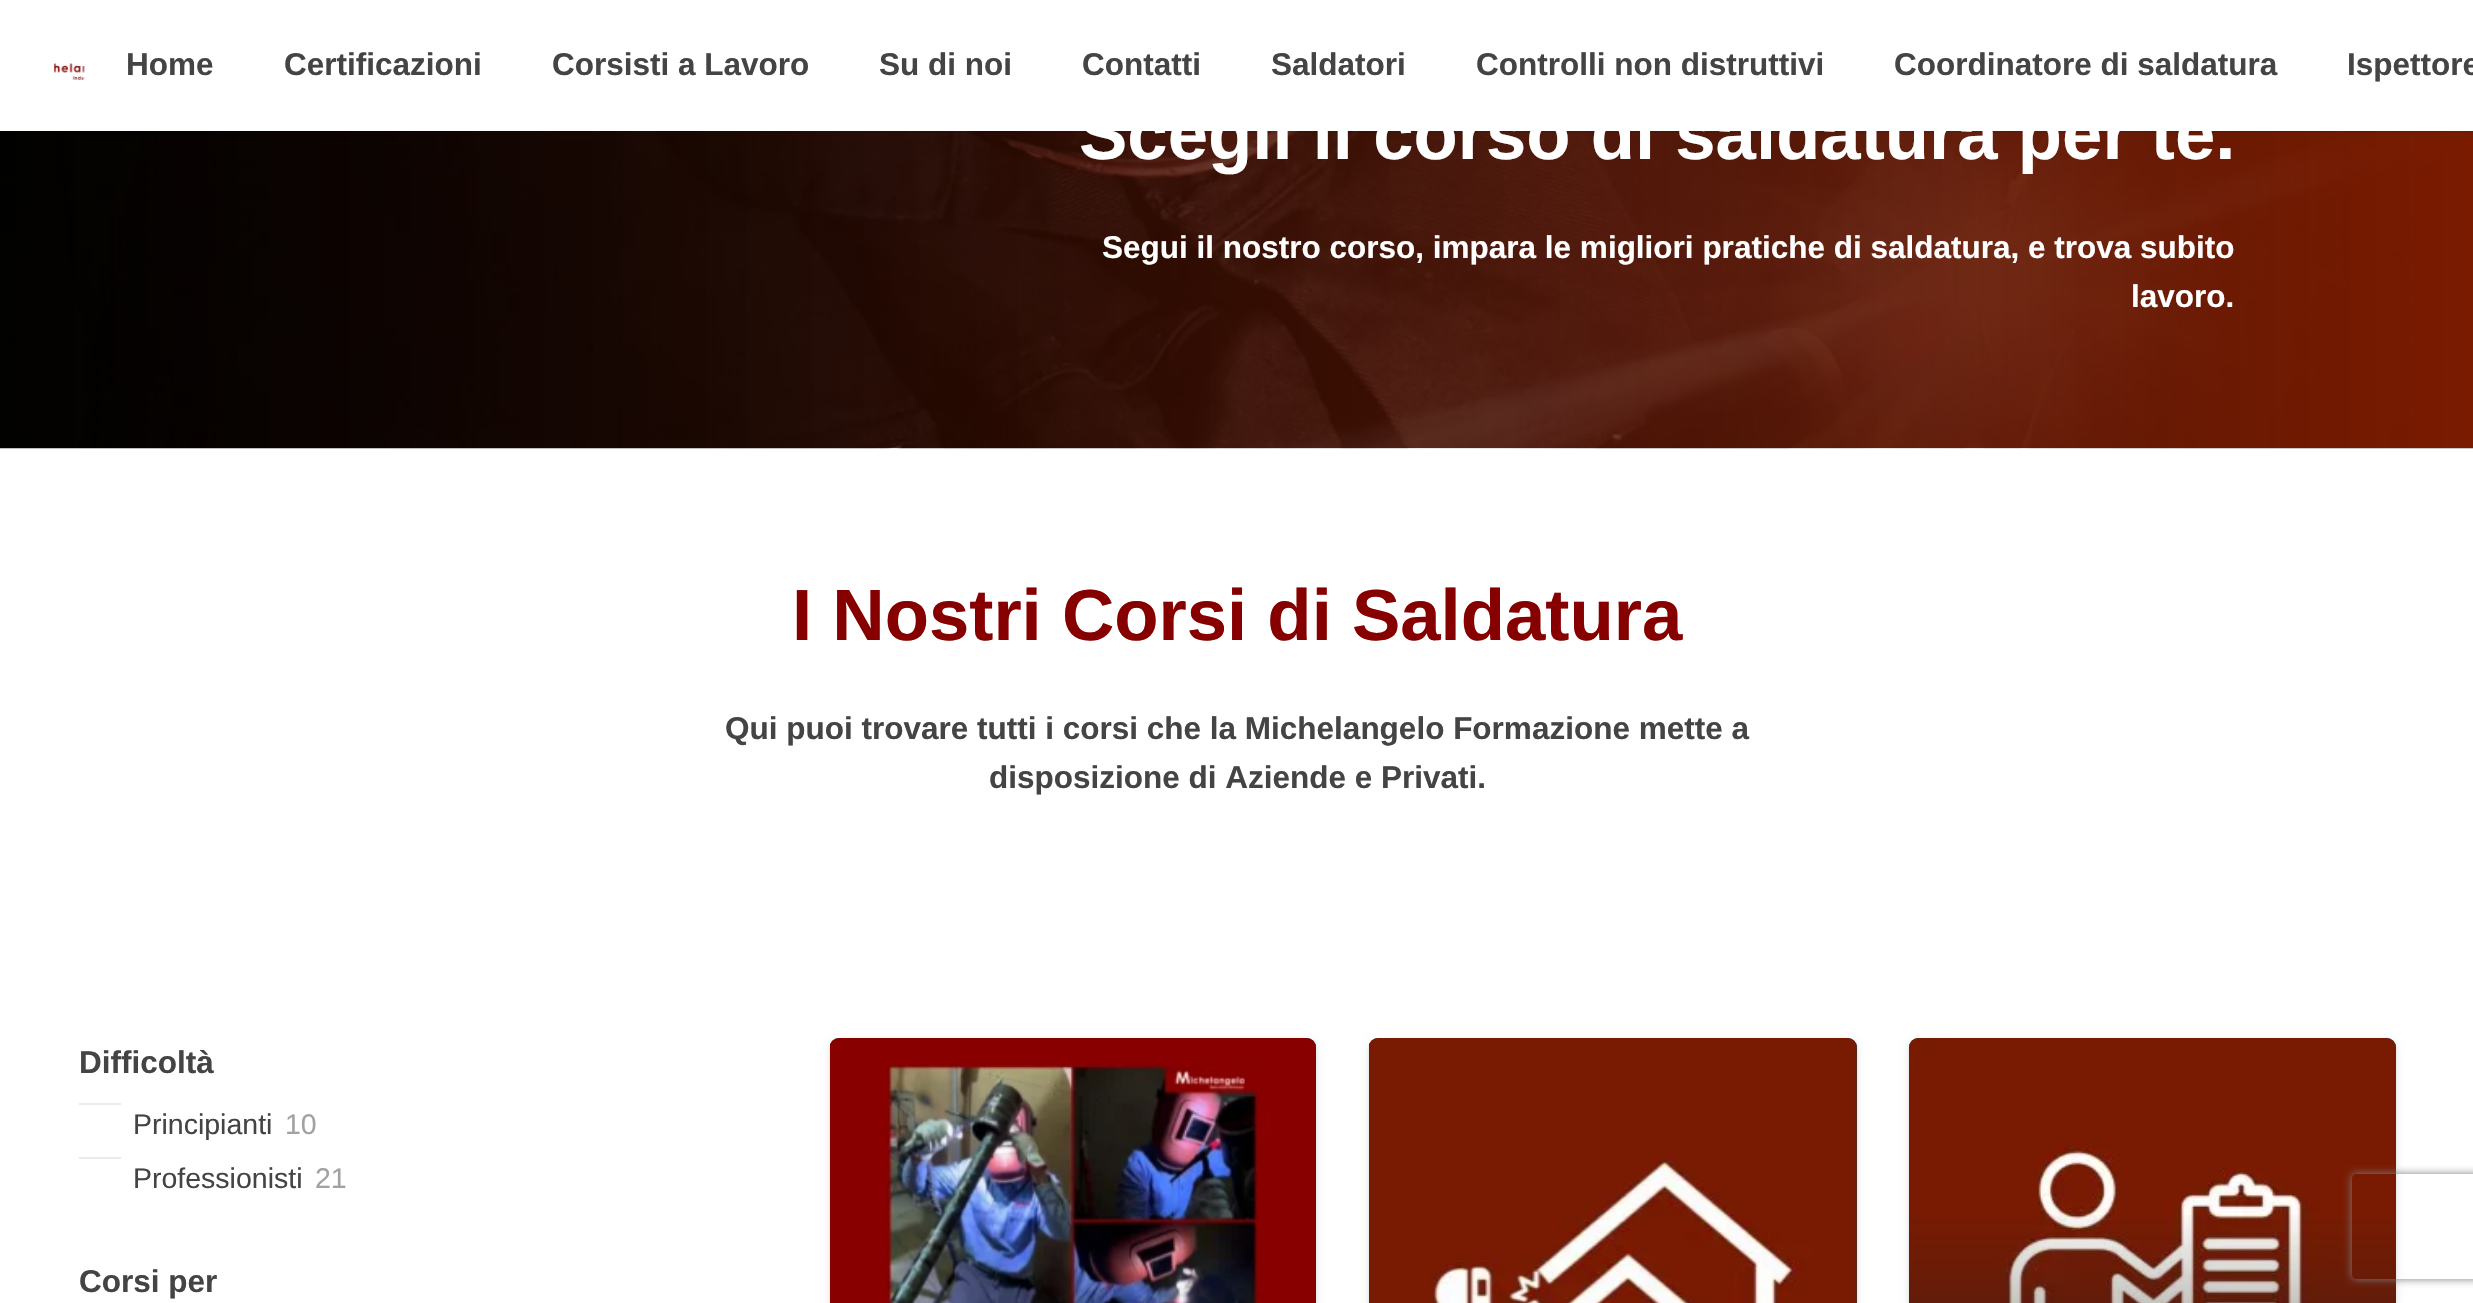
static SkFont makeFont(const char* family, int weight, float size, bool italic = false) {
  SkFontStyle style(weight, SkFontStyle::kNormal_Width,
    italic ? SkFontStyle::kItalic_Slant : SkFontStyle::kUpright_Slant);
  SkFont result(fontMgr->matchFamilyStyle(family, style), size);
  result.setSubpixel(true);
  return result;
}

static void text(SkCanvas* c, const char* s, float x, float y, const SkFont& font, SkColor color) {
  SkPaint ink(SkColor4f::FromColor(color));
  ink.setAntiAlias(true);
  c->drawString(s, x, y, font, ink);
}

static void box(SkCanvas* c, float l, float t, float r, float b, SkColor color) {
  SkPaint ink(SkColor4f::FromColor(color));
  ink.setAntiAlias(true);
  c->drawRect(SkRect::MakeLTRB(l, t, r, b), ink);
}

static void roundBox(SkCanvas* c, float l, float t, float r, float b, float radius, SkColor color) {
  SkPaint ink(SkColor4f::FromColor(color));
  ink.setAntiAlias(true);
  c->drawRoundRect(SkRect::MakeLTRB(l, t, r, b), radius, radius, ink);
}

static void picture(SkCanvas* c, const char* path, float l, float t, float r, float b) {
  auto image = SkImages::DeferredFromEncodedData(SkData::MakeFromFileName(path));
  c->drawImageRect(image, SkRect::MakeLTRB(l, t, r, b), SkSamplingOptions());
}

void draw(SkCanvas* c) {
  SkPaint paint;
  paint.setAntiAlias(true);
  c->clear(0xffffffff);
  picture(c, "img_02.png", 0, 131, 2473, 449);
  paint.setColor(0x14000000);
  c->drawPath(SkPathBuilder().moveTo(0, 131).lineTo(0, 133).lineTo(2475, 133).lineTo(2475, 2).lineTo(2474, 2).lineTo(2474, 131).close().detach(), paint);
  picture(c, "img_01.png", 53, 63, 85, 80);
  SkFont face1 = makeFont("Liberation Sans", 700, 31.5f);
  text(c, "Home", 126, 75, face1, 0xff444444);
  text(c, "Certificazioni", 284, 75, face1, 0xff444444);
  text(c, "Corsisti a Lavoro", 552, 75, face1, 0xff444444);
  text(c, "Su di noi", 879, 75, face1, 0xff444444);
  text(c, "Contatti", 1082, 75, face1, 0xff444444);
  text(c, "Saldatori", 1271, 75, face1, 0xff444444);
  text(c, "Controlli non distruttivi", 1476, 75, face1, 0xff444444);
  text(c, "Coordinatore di saldatura", 1894, 75, face1, 0xff444444);
  text(c, "Ispettore", 2347, 75, face1, 0xff444444);
  SkFont face2 = makeFont("Liberation Sans", 700, 72.5f);
  text(c, "Scegli il corso di saldatura per te.", 1079, 159, face2, 0xffffffff);
  text(c, "Segui il nostro corso, impara le migliori pratiche di saldatura, e trova subito", 1102, 258, face1, 0xffffffff);
  text(c, "lavoro.", 2131, 307, face1, 0xffffffff);
  text(c, "I Nostri Corsi di Saldatura", 792, 640, face2, 0xff870000);
  text(c, "Qui puoi trovare tutti i corsi che la Michelangelo Formazione mette a", 725, 739, face1, 0xff444444);
  text(c, "disposizione di Aziende e Privati.", 989, 788, face1, 0xff444444);
  text(c, "Difficoltà", 79, 1073, face1, 0xff444444);
  box(c, 79, 1103, 121, 1105, 0xffebebeb);
  SkFont face3 = makeFont("Liberation Sans", 400, 28.5f);
  text(c, "Principianti", 133, 1134, face3, 0xff444444);
  text(c, "10", 285, 1134, face3, 0xffa2a2a2);
  box(c, 79, 1157, 121, 1159, 0xffebebeb);
  text(c, "Professionisti", 133, 1188, face3, 0xff444444);
  text(c, "21", 315, 1188, face3, 0xffa2a2a2);
  text(c, "Corsi per", 79, 1292, face1, 0xff444444);
  paint.setColor(0x1a000000);
  paint.setMaskFilter(SkMaskFilter::MakeBlur(kNormal_SkBlurStyle, 4.5f));
  c->drawRoundRect(SkRect::MakeLTRB(830, 1041, 1316, 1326), 9, 9, paint);
  paint.setMaskFilter(nullptr);
  paint.setMaskFilter(SkMaskFilter::MakeBlur(kNormal_SkBlurStyle, 1));
  c->drawRoundRect(SkRect::MakeLTRB(830, 1040, 1316, 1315), 9, 9, paint);
  paint.setMaskFilter(nullptr);
  roundBox(c, 830, 1038, 1316, 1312, 9, 0xff333333);
  picture(c, "img_03.png", 830, 1038, 1316, 1303);
  paint.setMaskFilter(SkMaskFilter::MakeBlur(kNormal_SkBlurStyle, 4.5f));
  c->drawRoundRect(SkRect::MakeLTRB(1369, 1041, 1857, 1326), 9, 9, paint);
  paint.setMaskFilter(nullptr);
  paint.setMaskFilter(SkMaskFilter::MakeBlur(kNormal_SkBlurStyle, 1));
  c->drawRoundRect(SkRect::MakeLTRB(1369, 1040, 1857, 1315), 9, 9, paint);
  paint.setMaskFilter(nullptr);
  roundBox(c, 1369, 1038, 1857, 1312, 9, 0xff333333);
  picture(c, "img_04.png", 1369, 1038, 1857, 1303);
  paint.setMaskFilter(SkMaskFilter::MakeBlur(kNormal_SkBlurStyle, 4.5f));
  c->drawRoundRect(SkRect::MakeLTRB(1909, 1041, 2396, 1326), 9, 9, paint);
  paint.setMaskFilter(nullptr);
  paint.setMaskFilter(SkMaskFilter::MakeBlur(kNormal_SkBlurStyle, 1));
  c->drawRoundRect(SkRect::MakeLTRB(1909, 1040, 2396, 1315), 9, 9, paint);
  paint.setMaskFilter(nullptr);
  roundBox(c, 1909, 1038, 2396, 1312, 9, 0xff333333);
  picture(c, "img_05.png", 1909, 1038, 2396, 1303);
  {
    const SkColor colors[] = {0x001e1e1e, 0xcc1e1e1e};
    const float stops[] = {0, 1};
    const SkPoint ends[] = {{2153, 1206}, {2153, 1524}};
    paint.setShader(SkGradientShader::MakeLinear(ends, colors, stops, 2, SkTileMode::kClamp));
    paint.setAlpha(255);
  }
  c->drawRect(SkRect::MakeLTRB(1909, 1215, 2396, 1303), paint);
  c->save();
  c->clipPath(SkPathBuilder(SkPathFillType::kEvenOdd).moveTo(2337, 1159).lineTo(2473, 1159).lineTo(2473, 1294).lineTo(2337, 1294).close().moveTo(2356, 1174).lineTo(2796, 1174).cubicTo(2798, 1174, 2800, 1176, 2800, 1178).lineTo(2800, 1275).cubicTo(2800, 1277, 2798, 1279, 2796, 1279).lineTo(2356, 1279).cubicTo(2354, 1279, 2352, 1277, 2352, 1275).lineTo(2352, 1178).cubicTo(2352, 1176, 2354, 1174, 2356, 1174).close().detach(), true);
  paint.setShader(nullptr);
  paint.setColor(0xff808080);
  paint.setMaskFilter(SkMaskFilter::MakeBlur(kNormal_SkBlurStyle, 4.5f));
  c->drawRoundRect(SkRect::MakeLTRB(2352, 1174, 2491, 1279), 4, 4, paint);
  paint.setMaskFilter(nullptr);
  c->restore();
}
